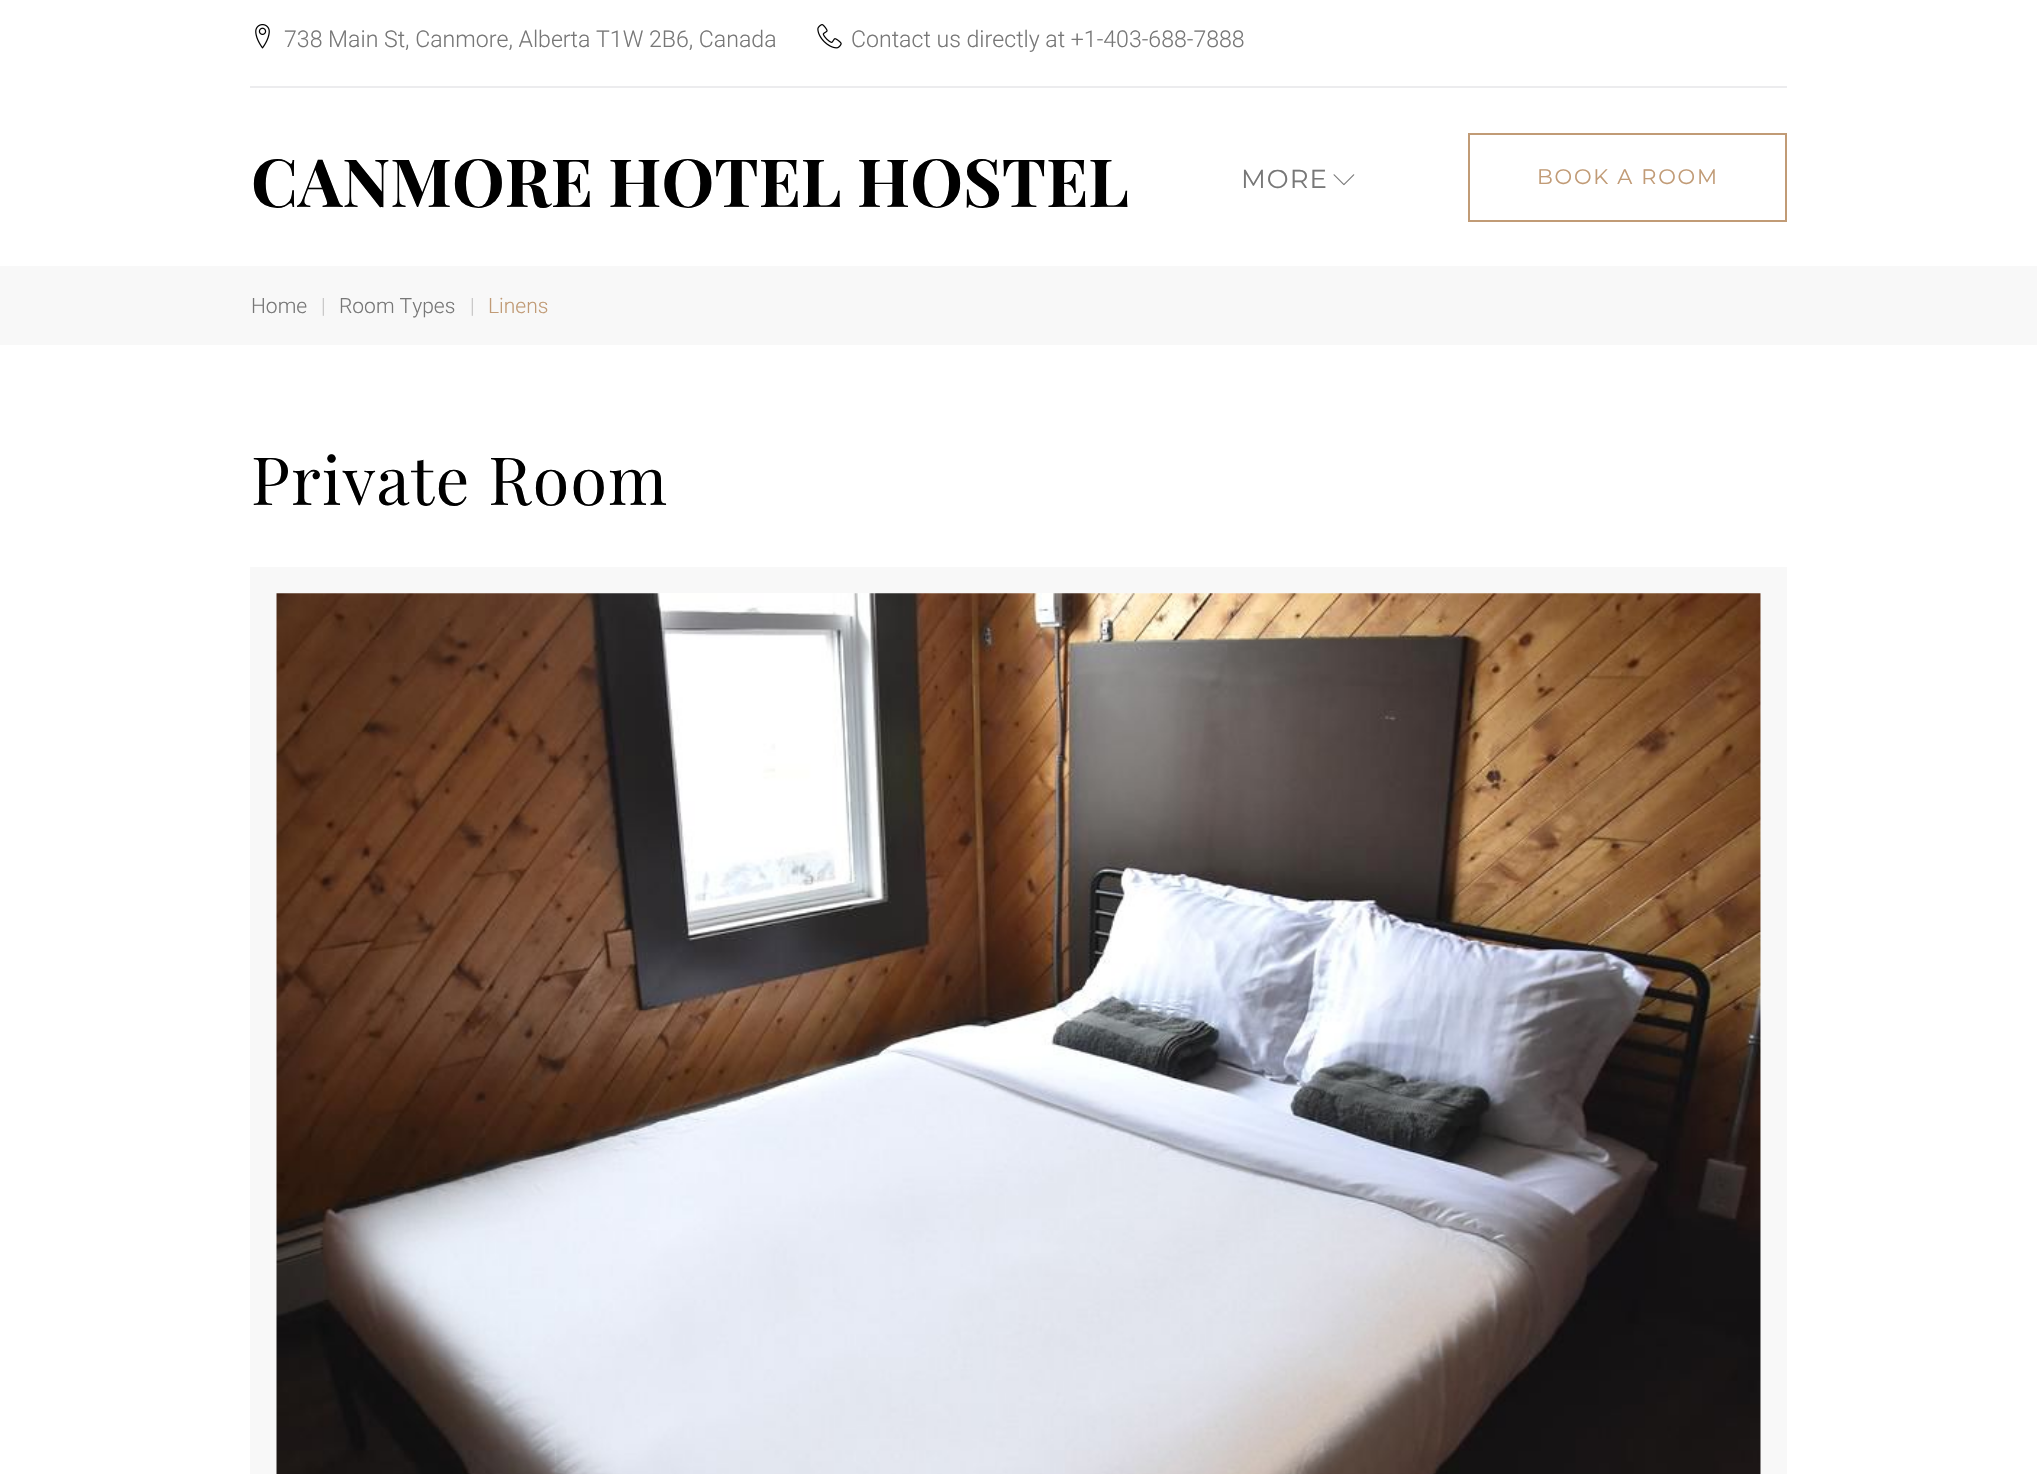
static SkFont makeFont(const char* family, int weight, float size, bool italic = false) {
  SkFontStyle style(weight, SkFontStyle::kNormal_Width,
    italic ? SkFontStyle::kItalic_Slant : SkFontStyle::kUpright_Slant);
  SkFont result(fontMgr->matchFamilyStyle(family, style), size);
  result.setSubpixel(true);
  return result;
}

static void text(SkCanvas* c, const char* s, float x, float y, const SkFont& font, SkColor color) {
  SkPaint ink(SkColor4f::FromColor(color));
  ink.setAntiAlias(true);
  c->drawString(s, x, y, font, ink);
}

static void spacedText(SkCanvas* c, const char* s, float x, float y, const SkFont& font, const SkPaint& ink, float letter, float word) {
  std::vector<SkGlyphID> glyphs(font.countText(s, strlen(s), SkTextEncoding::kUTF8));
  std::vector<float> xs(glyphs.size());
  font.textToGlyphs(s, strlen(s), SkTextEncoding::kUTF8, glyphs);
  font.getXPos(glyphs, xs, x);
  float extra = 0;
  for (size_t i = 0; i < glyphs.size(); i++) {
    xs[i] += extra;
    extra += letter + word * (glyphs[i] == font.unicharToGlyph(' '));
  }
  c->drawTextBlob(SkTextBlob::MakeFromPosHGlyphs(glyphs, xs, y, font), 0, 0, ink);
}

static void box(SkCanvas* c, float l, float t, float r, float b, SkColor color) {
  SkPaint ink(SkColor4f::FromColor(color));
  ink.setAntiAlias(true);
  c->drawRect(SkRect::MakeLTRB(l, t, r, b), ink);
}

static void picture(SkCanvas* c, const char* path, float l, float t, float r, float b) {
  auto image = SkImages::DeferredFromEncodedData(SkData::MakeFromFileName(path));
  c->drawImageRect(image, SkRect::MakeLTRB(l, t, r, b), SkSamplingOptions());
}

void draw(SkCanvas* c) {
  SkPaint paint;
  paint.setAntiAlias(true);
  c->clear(0xffffffff);
  box(c, 250, 86, 1787, 88, 0xffececee);
  picture(c, "img_01.png", 255, 24, 270, 49);
  SkFont face1 = makeFont("Roboto", 300, 23.1f);
  text(c, "738 Main St, Canmore, Alberta T1W 2B6, Canada", 284, 47, face1, 0xff777777);
  picture(c, "img_02.png", 817, 24, 842, 49);
  text(c, "Contact us directly at +1-403-688-7888", 851, 47, face1, 0xff777777);
  SkFont face2 = makeFont("Playfair Display", 700, 66.5f);
  text(c, "CANMORE HOTEL HOSTEL", 251, 207, face2, 0xff000000);
  SkFont face3 = makeFont("Montserrat", 100, 26);
  paint.setColor(0xff777777);
  spacedText(c, "MORE", 1241, 188, face3, paint, 1, 0);
  picture(c, "img_03.png", 1333, 174, 1355, 186);
  paint.setStyle(SkPaint::kStroke_Style);
  paint.setStrokeWidth(2);
  paint.setColor(0xffc19b76);
  c->drawRect(SkRect::MakeLTRB(1469, 134, 1786, 221), paint);
  SkFont face4 = makeFont("Montserrat", 100, 21);
  paint.setStyle(SkPaint::kFill_Style);
  spacedText(c, "BOOK A ROOM", 1537, 184, face4, paint, 1.75f, 0);
  box(c, 0, 266, 2037, 345, 0xfff8f8f8);
  SkFont face5 = makeFont("Roboto", 300, 21);
  text(c, "Home", 251, 313, face5, 0xff777777);
  text(c, "|", 321, 313, face5, 0xffc6c5c5);
  text(c, "Room Types", 339, 313, face5, 0xff777777);
  text(c, "|", 470, 313, face5, 0xffc6c5c5);
  text(c, "Linens", 488, 313, face5, 0xffc19b76);
  SkFont face6 = makeFont("Playfair Display", 400, 66.5f);
  paint.setColor(0xff000000);
  spacedText(c, "Private Room", 251, 505, face6, paint, 1.25f, 0);
  paint.setStyle(SkPaint::kStroke_Style);
  paint.setStrokeWidth(26);
  paint.setColor(0xfff8f8f8);
  c->drawRect(SkRect::MakeLTRB(263, 580, 1774, 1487), paint);
  picture(c, "img_04.png", 276, 593, 1761, 1474);
}
